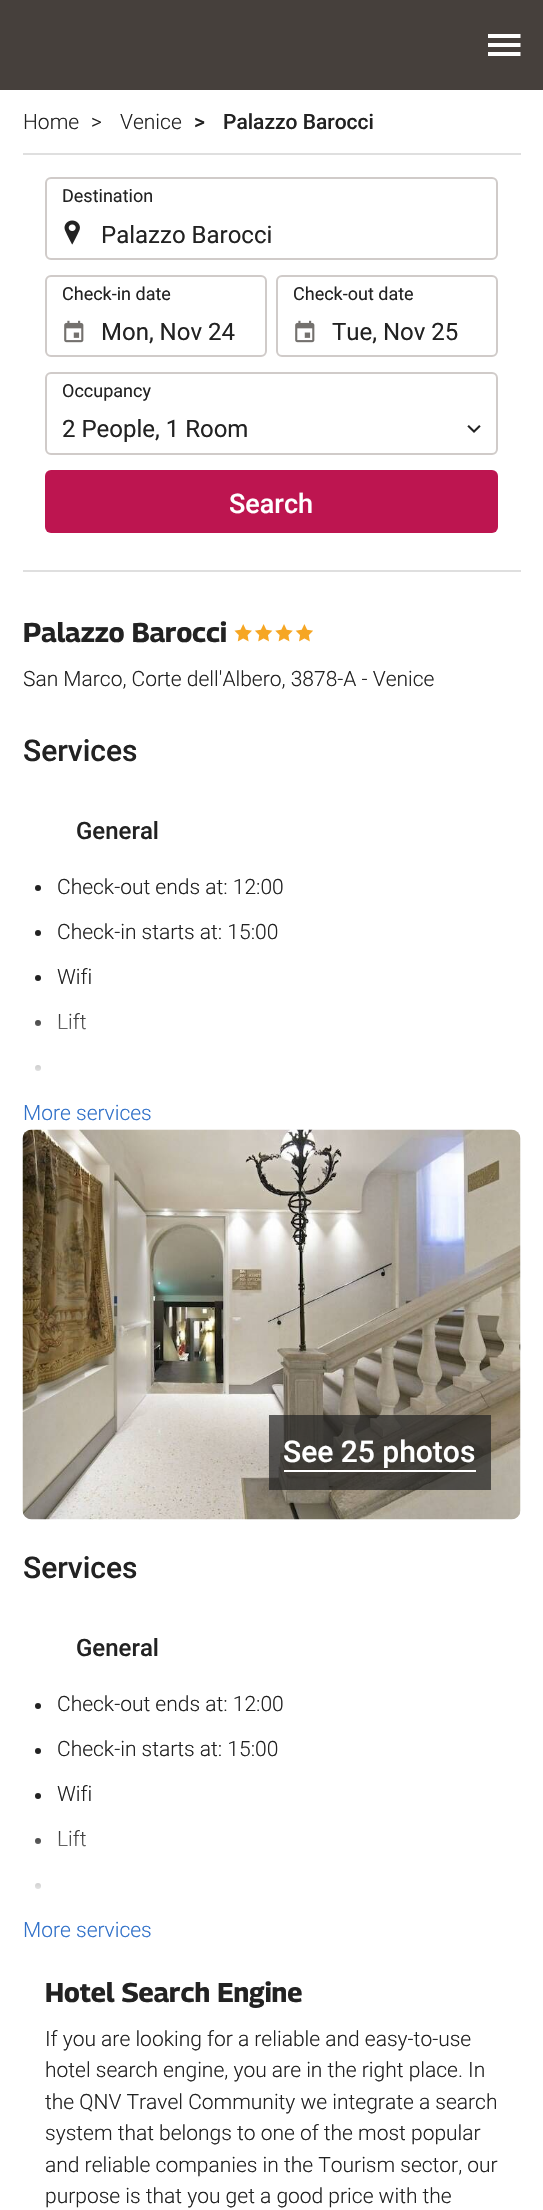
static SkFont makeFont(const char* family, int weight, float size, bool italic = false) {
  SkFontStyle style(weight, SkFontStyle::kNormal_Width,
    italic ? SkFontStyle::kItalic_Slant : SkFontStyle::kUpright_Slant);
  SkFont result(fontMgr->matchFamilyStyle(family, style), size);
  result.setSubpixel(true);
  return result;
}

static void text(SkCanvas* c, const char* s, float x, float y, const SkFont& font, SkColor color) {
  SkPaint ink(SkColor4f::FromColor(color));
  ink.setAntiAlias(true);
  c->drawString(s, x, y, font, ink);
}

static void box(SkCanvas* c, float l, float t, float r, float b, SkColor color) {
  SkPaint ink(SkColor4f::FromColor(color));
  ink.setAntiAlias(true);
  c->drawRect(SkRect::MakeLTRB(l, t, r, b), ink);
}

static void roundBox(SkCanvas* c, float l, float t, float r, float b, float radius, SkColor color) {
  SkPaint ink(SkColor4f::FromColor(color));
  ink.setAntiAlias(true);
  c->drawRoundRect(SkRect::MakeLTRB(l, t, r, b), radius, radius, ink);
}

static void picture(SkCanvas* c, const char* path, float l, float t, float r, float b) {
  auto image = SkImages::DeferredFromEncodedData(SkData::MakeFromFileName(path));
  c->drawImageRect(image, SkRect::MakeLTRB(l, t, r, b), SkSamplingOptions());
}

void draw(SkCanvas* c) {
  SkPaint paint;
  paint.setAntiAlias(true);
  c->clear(0xffffffff);
  box(c, 0, 0, 543, 90, 0xff46403c);
  paint.setColor(0xffffffff);
  c->drawPath(SkPathBuilder(SkPathFillType::kEvenOdd).moveTo(488, 38).lineTo(488, 34).lineTo(520.5f, 34).lineTo(520.5f, 38).close().moveTo(488, 47).lineTo(488, 43).lineTo(520.5f, 43).lineTo(520.5f, 47).close().moveTo(488, 56).lineTo(520.5f, 56).lineTo(520.5f, 52).lineTo(488, 52).close().detach(), paint);
  SkFont face1 = makeFont("Roboto", 300, 21);
  text(c, "Home", 23, 129, face1, 0xff222222);
  text(c, ">", 91, 129, face1, 0xff222222);
  text(c, "Venice", 120, 129, face1, 0xff222222);
  SkFont face2 = makeFont("Roboto", 500, 21);
  text(c, ">", 194, 129, face2, 0xff222222);
  text(c, "Palazzo Barocci", 223, 129, face2, 0xff222222);
  box(c, 23, 153, 521, 155, 0xffdfdfdf);
  box(c, 23, 570, 521, 572, 0xffdfdfdf);
  picture(c, "img_01.png", 64, 220, 80, 245);
  paint.setStyle(SkPaint::kStroke_Style);
  paint.setStrokeWidth(2);
  paint.setColor(0xffd0cbc9);
  c->drawRoundRect(SkRect::MakeLTRB(46, 178, 497, 259), 5, 5, paint);
  SkFont face3 = makeFont("Roboto", 400, 18);
  text(c, "Destination", 62, 202, face3, 0xff222222);
  SkFont face4 = makeFont("Roboto", 400, 24);
  text(c, "Palazzo Barocci", 101, 243, face4, 0xff222222);
  picture(c, "img_02.png", 64, 320, 84, 343);
  c->drawRoundRect(SkRect::MakeLTRB(46, 276, 266, 356), 5, 5, paint);
  text(c, "Check-in date", 62, 300, face3, 0xff222222);
  text(c, "Mon, Nov 24", 101, 340, face4, 0xff222222);
  picture(c, "img_02.png", 295, 320, 315, 343);
  c->drawRoundRect(SkRect::MakeLTRB(277, 276, 497, 356), 5, 5, paint);
  text(c, "Check-out date", 293, 300, face3, 0xff222222);
  text(c, "Tue, Nov 25", 332, 340, face4, 0xff222222);
  c->drawRoundRect(SkRect::MakeLTRB(46, 373, 497, 454), 5, 5, paint);
  text(c, "Occupancy", 62, 397, face3, 0xff222222);
  text(c, "2 People, 1 Room", 62, 437, face4, 0xff222222);
  picture(c, "img_03.png", 467, 425, 481, 433);
  roundBox(c, 45, 470, 498, 533, 6, 0xffbd1550);
  SkFont face5 = makeFont("Roboto", 500, 27);
  text(c, "Search", 229, 513, face5, 0xffffffff);
  SkFont face6 = makeFont("Georama", 700, 27);
  text(c, "Palazzo Barocci", 23, 642, face6, 0xff222222);
  picture(c, "img_04.png", 234, 624, 313, 642);
  text(c, "San Marco, Corte dell'Albero, 3878-A - Venice", 23, 686, face1, 0xff222222);
  SkFont face7 = makeFont("Roboto", 500, 30);
  text(c, "Services", 23, 761, face7, 0xff222222);
  SkFont face8 = makeFont("Roboto", 500, 24);
  text(c, "General", 76, 839, face8, 0xff222222);
  paint.setStyle(SkPaint::kFill_Style);
  paint.setColor(0xff222222);
  c->drawCircle(38, 888, 3, paint);
  text(c, "Check-out ends at: 12:00", 57, 894, face1, 0xff222222);
  c->drawCircle(38, 933, 3, paint);
  text(c, "Check-in starts at: 15:00", 57, 939, face1, 0xff222222);
  c->drawCircle(38, 978, 3, paint);
  text(c, "Wifi", 57, 984, face1, 0xff222222);
  c->drawCircle(38, 1023, 3, paint);
  text(c, "Lift", 57, 1029, face1, 0xff222222);
  c->drawCircle(38, 1068, 3, paint);
  {
    const SkColor colors[] = {0x00ffffff, 0xffffffff};
    const float stops[] = {0, 1};
    const SkPoint ends[] = {{272, 1007}, {272, 1082}};
    paint.setShader(SkGradientShader::MakeLinear(ends, colors, stops, 2, SkTileMode::kClamp));
    paint.setAlpha(255);
  }
  c->drawRect(SkRect::MakeLTRB(35, 1013, 86, 1071), paint);
  text(c, "More services", 23, 1120, face1, 0xff3171c9);
  picture(c, "img_05.png", 22, 1129, 521, 1520);
  box(c, 269, 1415, 491, 1490, 0xb3222222);
  text(c, "See 25 photos", 283, 1462, face7, 0xffffffff);
  box(c, 284, 1470, 476, 1472, 0xffffffff);
  text(c, "Services", 23, 1578, face7, 0xff222222);
  text(c, "General", 76, 1656, face8, 0xff222222);
  paint.setShader(nullptr);
  paint.setColor(0xff222222);
  c->drawCircle(38, 1706, 3, paint);
  text(c, "Check-out ends at: 12:00", 57, 1711, face1, 0xff222222);
  c->drawCircle(38, 1751, 3, paint);
  text(c, "Check-in starts at: 15:00", 57, 1756, face1, 0xff222222);
  c->drawCircle(38, 1796, 3, paint);
  text(c, "Wifi", 57, 1801, face1, 0xff222222);
  c->drawCircle(38, 1841, 3, paint);
  text(c, "Lift", 57, 1846, face1, 0xff222222);
  c->drawCircle(38, 1886, 3, paint);
  {
    const SkColor colors[] = {0x00ffffff, 0xffffffff};
    const float stops[] = {0, 1};
    const SkPoint ends[] = {{272, 1824}, {272, 1899}};
    paint.setShader(SkGradientShader::MakeLinear(ends, colors, stops, 2, SkTileMode::kClamp));
    paint.setAlpha(255);
  }
  c->drawRect(SkRect::MakeLTRB(35, 1830, 86, 1889), paint);
  text(c, "More services", 23, 1937, face1, 0xff3171c9);
  text(c, "Hotel Search Engine", 45, 2002, face6, 0xff222222);
  text(c, "If you are looking for a reliable and easy-to-use", 45, 2046, face1, 0xff222222);
  text(c, "hotel search engine, you are in the right place. In", 45, 2077, face1, 0xff222222);
  text(c, "the QNV Travel Community we integrate a search", 45, 2109, face1, 0xff222222);
  text(c, "system that belongs to one of the most popular", 45, 2140, face1, 0xff222222);
  text(c, "and reliable companies in the Tourism sector, our", 45, 2172, face1, 0xff222222);
  text(c, "purpose is that you get a good price with the", 45, 2203, face1, 0xff222222);
}
